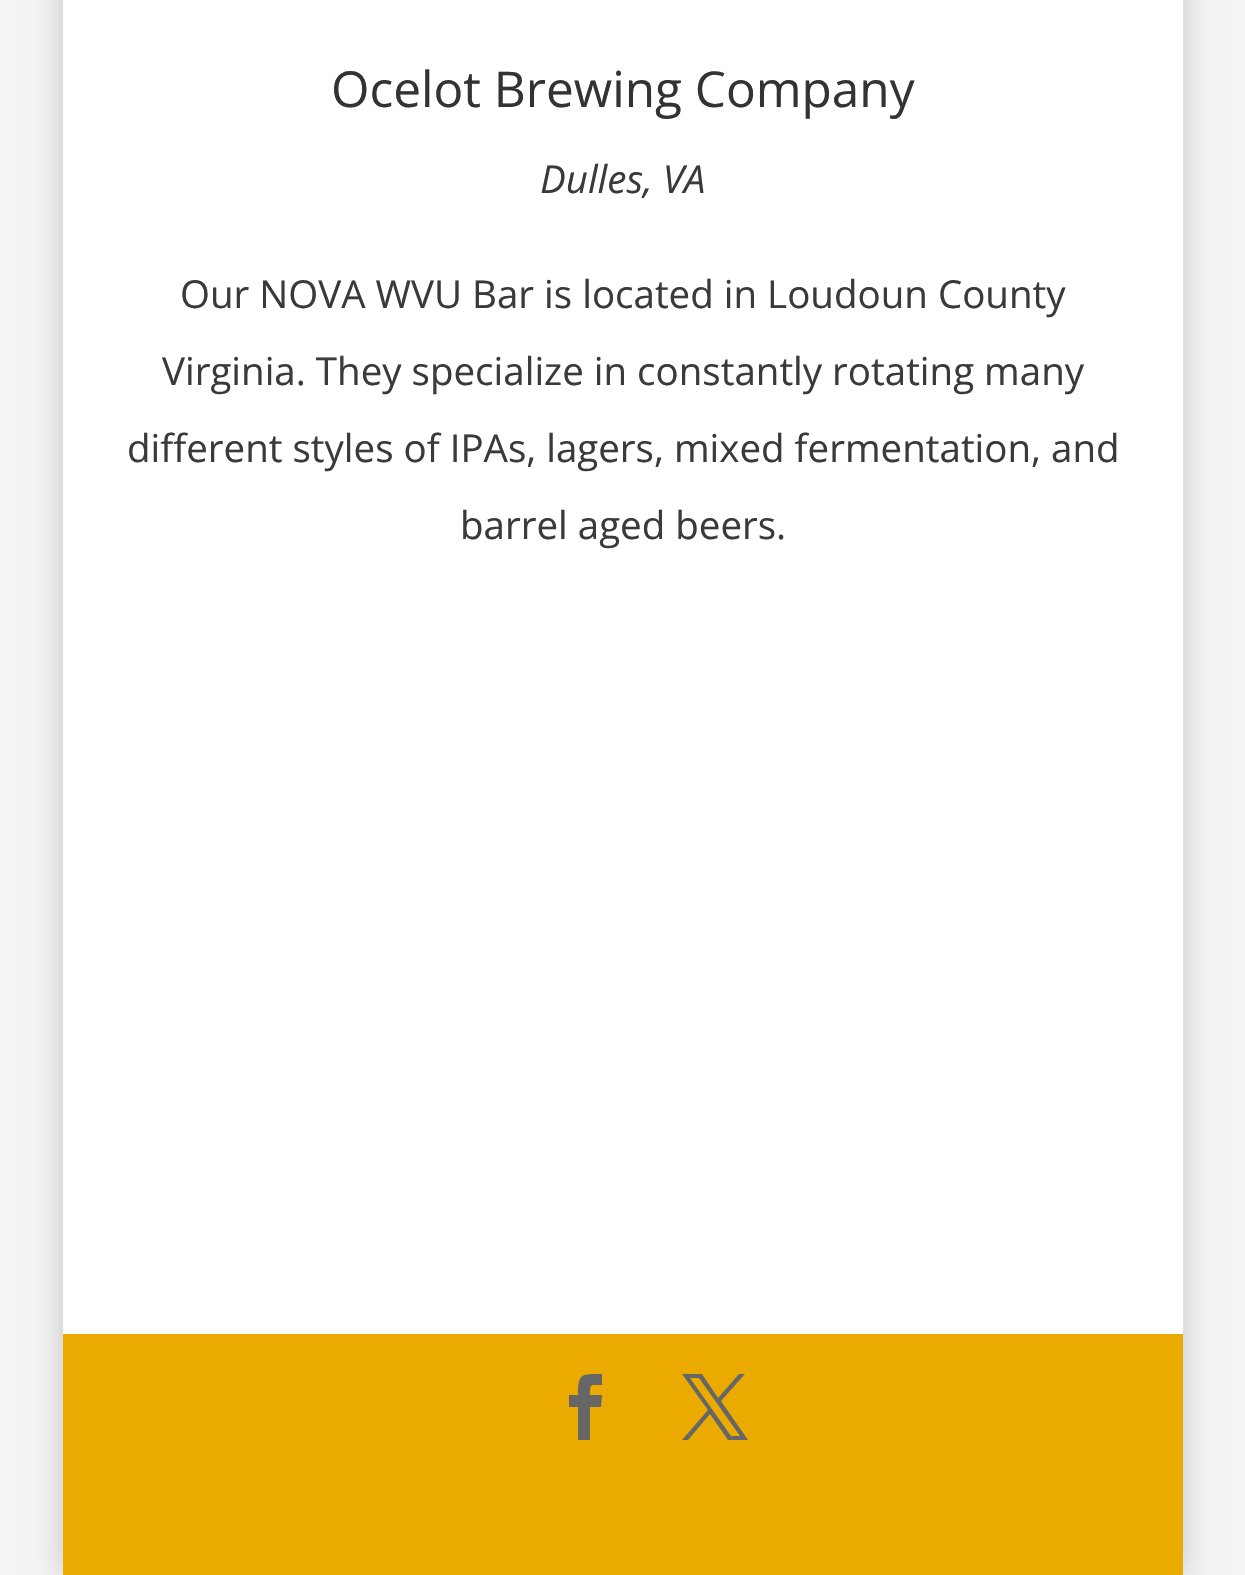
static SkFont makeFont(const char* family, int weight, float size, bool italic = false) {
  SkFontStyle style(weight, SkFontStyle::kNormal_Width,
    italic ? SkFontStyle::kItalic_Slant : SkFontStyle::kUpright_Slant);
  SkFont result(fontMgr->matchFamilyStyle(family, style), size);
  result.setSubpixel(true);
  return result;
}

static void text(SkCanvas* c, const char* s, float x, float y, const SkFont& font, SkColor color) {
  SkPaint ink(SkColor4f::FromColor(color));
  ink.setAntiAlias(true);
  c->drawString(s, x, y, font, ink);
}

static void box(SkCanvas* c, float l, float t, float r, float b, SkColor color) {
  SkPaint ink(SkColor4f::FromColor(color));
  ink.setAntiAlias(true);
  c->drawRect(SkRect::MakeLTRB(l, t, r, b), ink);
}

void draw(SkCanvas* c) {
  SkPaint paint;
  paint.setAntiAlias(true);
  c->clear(0xfff4f4f4);
  paint.setColor(0x33000000);
  paint.setMaskFilter(SkMaskFilter::MakeBlur(kNormal_SkBlurStyle, 14));
  c->drawRect(SkRect::MakeLTRB(63, -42, 1183, 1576), paint);
  paint.setMaskFilter(nullptr);
  box(c, 63, 0, 1183, 1334, 0xffffffff);
  SkFont face1 = makeFont("Open Sans", 400, 49.5f);
  text(c, "Ocelot Brewing Company", 331, 107, face1, 0xff333333);
  SkFont face2 = makeFont("Open Sans", 400, 38.5f, true);
  text(c, "Dulles, VA", 540, 193, face2, 0xff3a3a3a);
  SkFont face3 = makeFont("Open Sans", 400, 38.5f);
  text(c, "Our NOVA WVU Bar is located in Loudoun County", 180, 308, face3, 0xff3a3a3a);
  text(c, "Virginia. They specialize in constantly rotating many", 162, 385, face3, 0xff3a3a3a);
  text(c, "different styles of IPAs, lagers, mixed fermentation, and", 127, 462, face3, 0xff3a3a3a);
  text(c, "barrel aged beers.", 460, 539, face3, 0xff3a3a3a);
  box(c, 63, 1334, 1183, 1575, 0xffeaaa00);
  paint.setColor(0xff666666);
  c->drawPath(SkPathBuilder().moveTo(578, 1440).lineTo(590, 1440).lineTo(590, 1407).lineTo(601, 1407).lineTo(602, 1395).lineTo(590, 1395).cubicTo(590, 1383, 590, 1385, 602, 1385).lineTo(602, 1374).cubicTo(581, 1374, 578, 1373, 578, 1395).lineTo(569, 1395).lineTo(569, 1407).lineTo(578, 1407).close().detach(), paint);
  c->drawPath(SkPathBuilder().moveTo(682, 1374).lineTo(708, 1410).lineTo(682, 1440).lineTo(688, 1440).lineTo(710, 1414).lineTo(728, 1440).lineTo(748, 1440).lineTo(721, 1401).lineTo(745, 1374).lineTo(739, 1374).lineTo(718, 1398).lineTo(702, 1374).close().moveTo(690, 1378).lineTo(699, 1378).lineTo(740, 1436).lineTo(731, 1436).close().detach(), paint);
}
